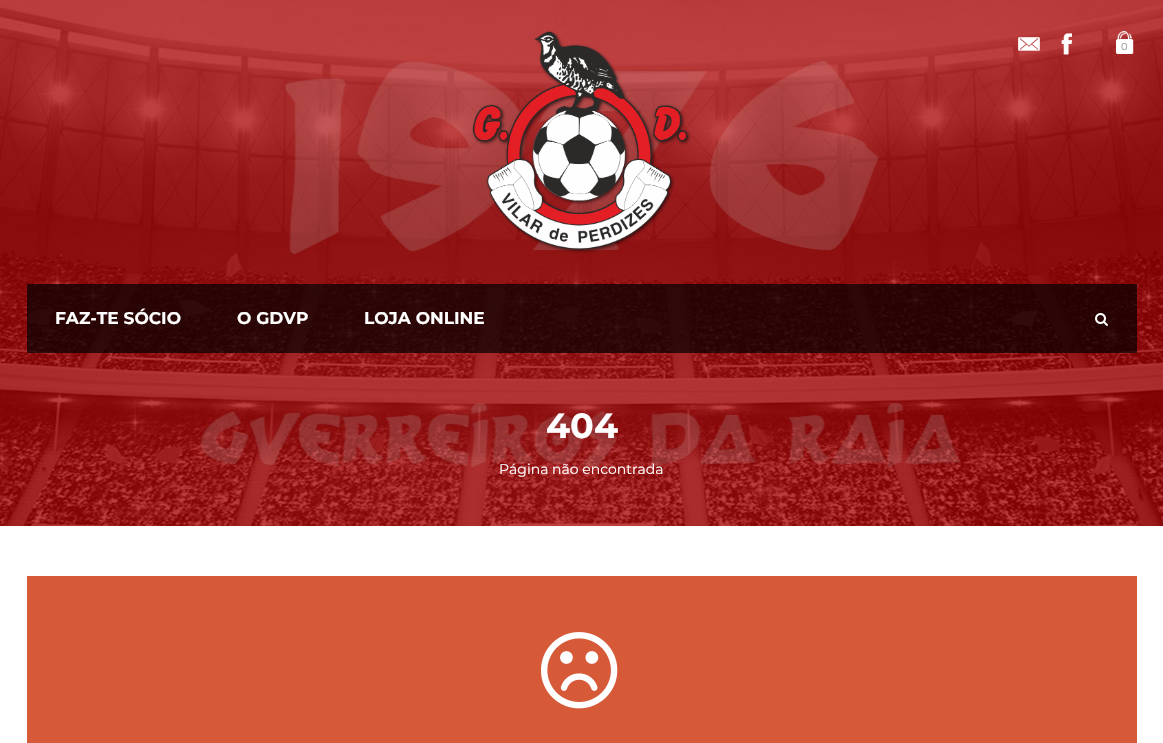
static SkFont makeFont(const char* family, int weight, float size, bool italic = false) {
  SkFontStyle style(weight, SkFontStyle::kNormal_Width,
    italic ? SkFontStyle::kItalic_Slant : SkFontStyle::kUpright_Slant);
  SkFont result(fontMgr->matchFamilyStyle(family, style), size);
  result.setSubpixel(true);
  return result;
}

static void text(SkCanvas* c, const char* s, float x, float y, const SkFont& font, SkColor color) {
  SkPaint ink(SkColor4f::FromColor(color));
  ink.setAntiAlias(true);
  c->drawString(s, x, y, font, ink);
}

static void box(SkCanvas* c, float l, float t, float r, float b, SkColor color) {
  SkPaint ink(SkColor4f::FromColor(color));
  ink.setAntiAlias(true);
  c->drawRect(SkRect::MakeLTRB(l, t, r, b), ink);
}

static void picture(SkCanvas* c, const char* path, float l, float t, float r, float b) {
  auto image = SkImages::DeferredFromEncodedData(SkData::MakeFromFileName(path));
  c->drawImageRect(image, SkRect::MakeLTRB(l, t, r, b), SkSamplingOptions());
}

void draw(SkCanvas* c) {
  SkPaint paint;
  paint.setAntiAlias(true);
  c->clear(0xffffffff);
  picture(c, "img_01.png", 0, 0, 1163, 526);
  picture(c, "img_02.png", 1018, 37, 1040, 51);
  picture(c, "img_03.png", 1061, 33, 1072, 55);
  picture(c, "img_04.png", 1116, 31, 1134, 54);
  SkFont face1 = makeFont("Montserrat", 400, 10);
  text(c, "0", 1121, 50, face1, 0xff999999);
  picture(c, "img_05.png", 472, 31, 691, 254);
  box(c, 27, 284, 1137, 353, 0xb3000000);
  SkFont face2 = makeFont("Montserrat", 700, 17);
  text(c, "FAZ-TE SÓCIO", 55, 324, face2, 0xffffffff);
  text(c, "O GDVP", 237, 324, face2, 0xffffffff);
  text(c, "LOJA ONLINE", 364, 324, face2, 0xffffffff);
  picture(c, "img_06.png", 1095, 313, 1108, 326);
  SkFont face3 = makeFont("Montserrat", 700, 35);
  text(c, "404", 546, 438, face3, 0xffffffff);
  SkFont face4 = makeFont("Montserrat", 400, 14);
  text(c, "Página não encontrada", 499, 474, face4, 0xffffffff);
  box(c, 27, 576, 1137, 743, 0xffd65938);
  picture(c, "img_07.png", 541, 632, 618, 709);
}
